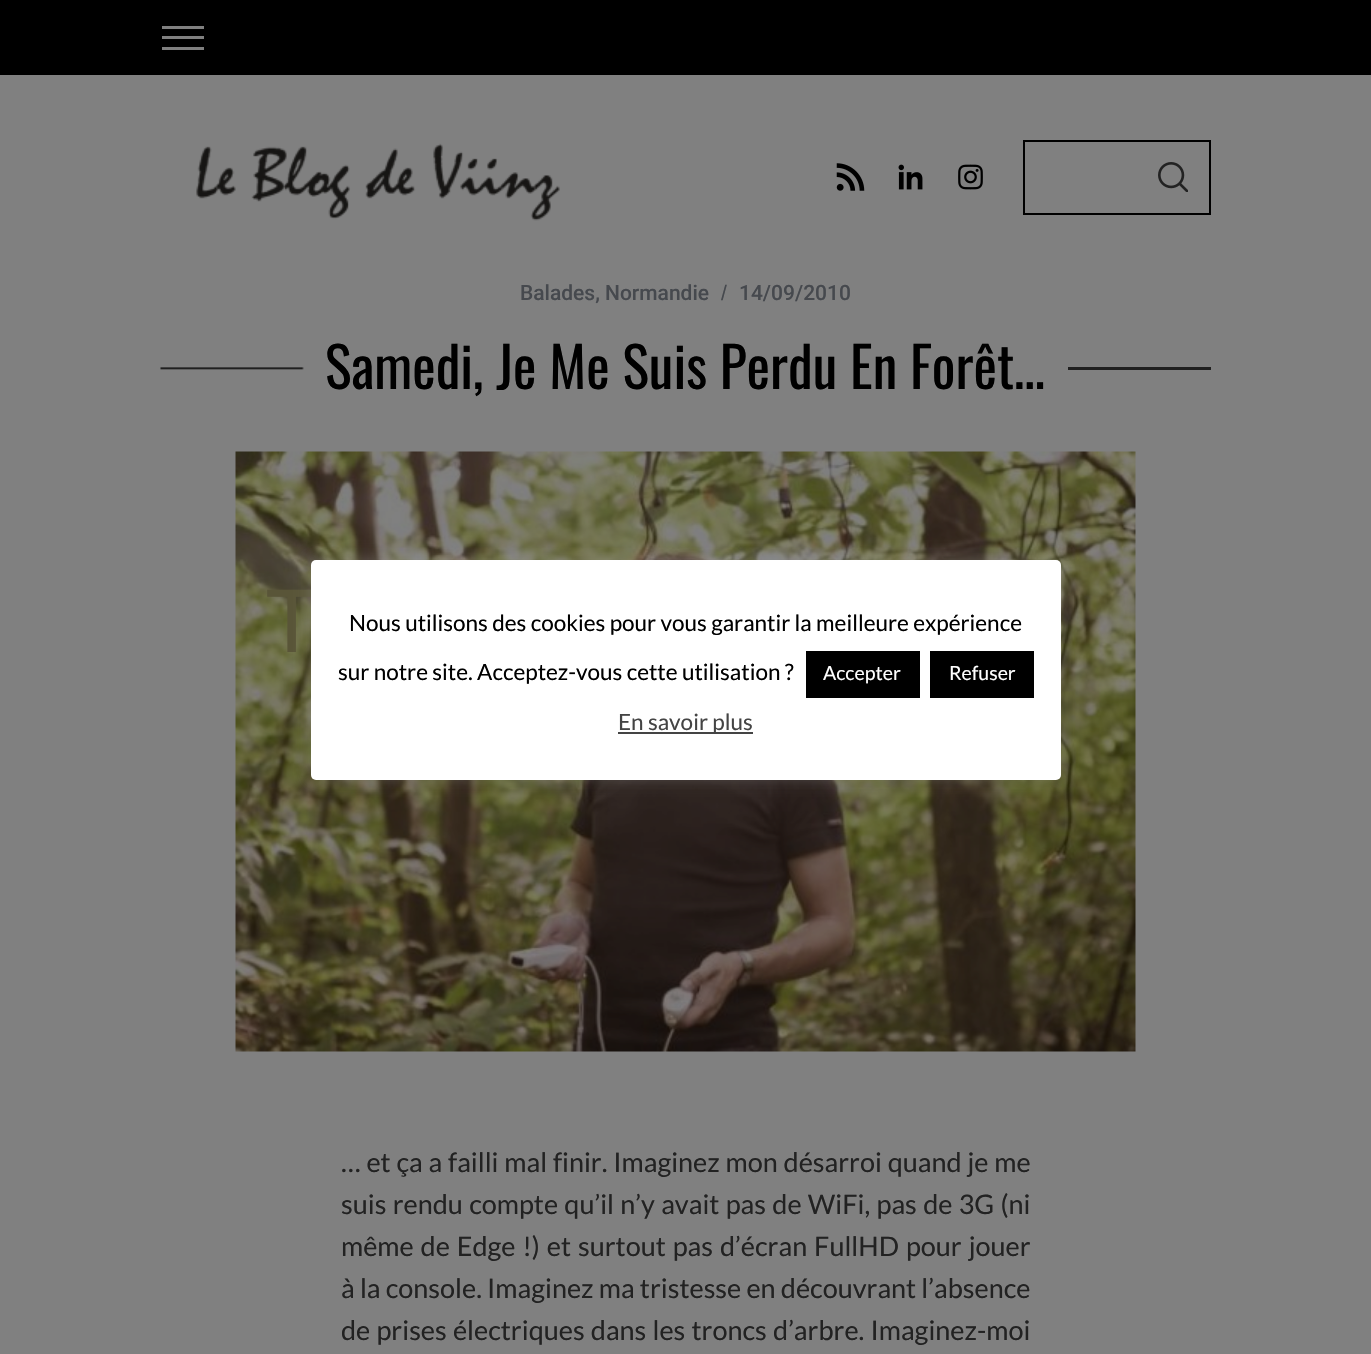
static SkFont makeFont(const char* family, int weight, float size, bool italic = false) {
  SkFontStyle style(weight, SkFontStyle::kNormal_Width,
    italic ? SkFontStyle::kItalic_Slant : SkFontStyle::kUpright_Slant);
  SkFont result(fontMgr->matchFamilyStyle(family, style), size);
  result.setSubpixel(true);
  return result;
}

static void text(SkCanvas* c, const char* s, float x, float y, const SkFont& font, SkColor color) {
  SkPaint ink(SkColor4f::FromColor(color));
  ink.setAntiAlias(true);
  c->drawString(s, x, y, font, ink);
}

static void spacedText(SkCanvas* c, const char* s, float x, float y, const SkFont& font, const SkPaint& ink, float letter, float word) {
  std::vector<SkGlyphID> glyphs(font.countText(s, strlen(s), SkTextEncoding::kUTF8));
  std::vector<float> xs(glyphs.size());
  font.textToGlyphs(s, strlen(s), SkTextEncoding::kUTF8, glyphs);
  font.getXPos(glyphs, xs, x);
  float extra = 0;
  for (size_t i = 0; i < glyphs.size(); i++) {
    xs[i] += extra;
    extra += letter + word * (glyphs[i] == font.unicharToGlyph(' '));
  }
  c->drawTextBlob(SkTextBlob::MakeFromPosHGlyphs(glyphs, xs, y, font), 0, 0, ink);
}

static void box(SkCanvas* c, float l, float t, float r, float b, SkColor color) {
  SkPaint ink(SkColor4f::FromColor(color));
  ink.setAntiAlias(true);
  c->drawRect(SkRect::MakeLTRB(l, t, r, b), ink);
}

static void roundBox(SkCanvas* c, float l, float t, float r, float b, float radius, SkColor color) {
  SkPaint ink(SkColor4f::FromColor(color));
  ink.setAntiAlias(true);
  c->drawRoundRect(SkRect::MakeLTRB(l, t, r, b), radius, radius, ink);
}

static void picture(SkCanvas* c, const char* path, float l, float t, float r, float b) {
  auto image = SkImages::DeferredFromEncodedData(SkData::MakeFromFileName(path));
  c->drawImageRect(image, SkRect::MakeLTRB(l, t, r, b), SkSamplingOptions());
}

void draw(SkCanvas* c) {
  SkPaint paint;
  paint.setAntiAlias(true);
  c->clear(0xff808080);
  box(c, 0, 0, 1371, 75, 0xff000000);
  box(c, 162, 36, 204, 39, 0xff808080);
  box(c, 162, 26, 204, 29, 0xff808080);
  box(c, 162, 47, 204, 50, 0xff808080);
  picture(c, "img_01.png", 196, 143, 560, 221);
  picture(c, "img_02.png", 836, 163, 865, 191);
  picture(c, "img_03.png", 898, 164, 923, 190);
  picture(c, "img_04.png", 958, 164, 983, 190);
  paint.setStyle(SkPaint::kStroke_Style);
  paint.setStrokeWidth(2);
  paint.setColor(0xff000000);
  c->drawRect(SkRect::MakeLTRB(1024, 141, 1210, 214), paint);
  picture(c, "img_05.png", 1158, 162, 1188, 192);
  picture(c, "img_07.png", 235, 451, 1136, 1052);
  SkFont face1 = makeFont("Lato", 400, 87);
  text(c, "T", 266, 652, face1, 0xff595538);
  SkFont face2 = makeFont("Roboto", 500, 21);
  text(c, "Balades, Normandie", 520, 300, face2, 0xff46494e);
  SkFont face3 = makeFont("Liberation Sans", 400, 21);
  text(c, "/", 721, 300, face3, 0xff46494e);
  text(c, "14/09/2010", 739, 300, face2, 0xff46494e);
  picture(c, "img_06.png", 160, 367, 304, 370);
  SkFont face4 = makeFont("Oswald", 400, 55.8f);
  text(c, "Samedi, Je Me Suis Perdu En Forêt…", 325, 389, face4, 0xff000000);
  box(c, 1068, 367, 1211, 370, 0xff202020);
  SkFont face5 = makeFont("Lato", 400, 27);
  paint.setStyle(SkPaint::kFill_Style);
  paint.setColor(0xff222222);
  spacedText(c, "… et ça a failli mal finir. Imaginez mon désarroi quand je me", 341, 1172, face5, paint, 0, 0.6f);
  spacedText(c, "suis rendu compte qu’il n’y avait pas de WiFi, pas de 3G (ni", 341, 1214, face5, paint, 0, 1.1f);
  spacedText(c, "même de Edge !) et surtout pas d’écran FullHD pour jouer", 341, 1256, face5, paint, 0, 1.75f);
  text(c, "à la console. Imaginez ma tristesse en découvrant l’absence", 341, 1298, face5, 0xff222222);
  spacedText(c, "de prises électriques dans les troncs d’arbre. Imaginez-moi", 341, 1340, face5, paint, 0, 1);
  paint.setColor(0x4dacabab);
  paint.setMaskFilter(SkMaskFilter::MakeBlur(kNormal_SkBlurStyle, 7.5f));
  c->drawRoundRect(SkRect::MakeLTRB(311, 558, 1061, 779), 5, 5, paint);
  paint.setMaskFilter(nullptr);
  roundBox(c, 311, 560, 1061, 780, 5, 0xffffffff);
  SkFont face6 = makeFont("Lato", 400, 22.5f);
  text(c, "Nous utilisons des cookies pour vous garantir la meilleure expérience", 349, 631, face6, 0xff000000);
  text(c, "sur notre site. Acceptez-vous cette utilisation ?", 338, 680, face6, 0xff000000);
  box(c, 806, 651, 920, 698, 0xff000000);
  SkFont face7 = makeFont("Lato", 400, 19.5f);
  text(c, "Accepter", 823, 680, face7, 0xffffffff);
  box(c, 930, 651, 1034, 698, 0xff000000);
  text(c, "Refuser", 949, 680, face7, 0xffffffff);
  box(c, 618, 732, 753, 734, 0xff444444);
  text(c, "En savoir plus", 618, 730, face6, 0xff444444);
}
